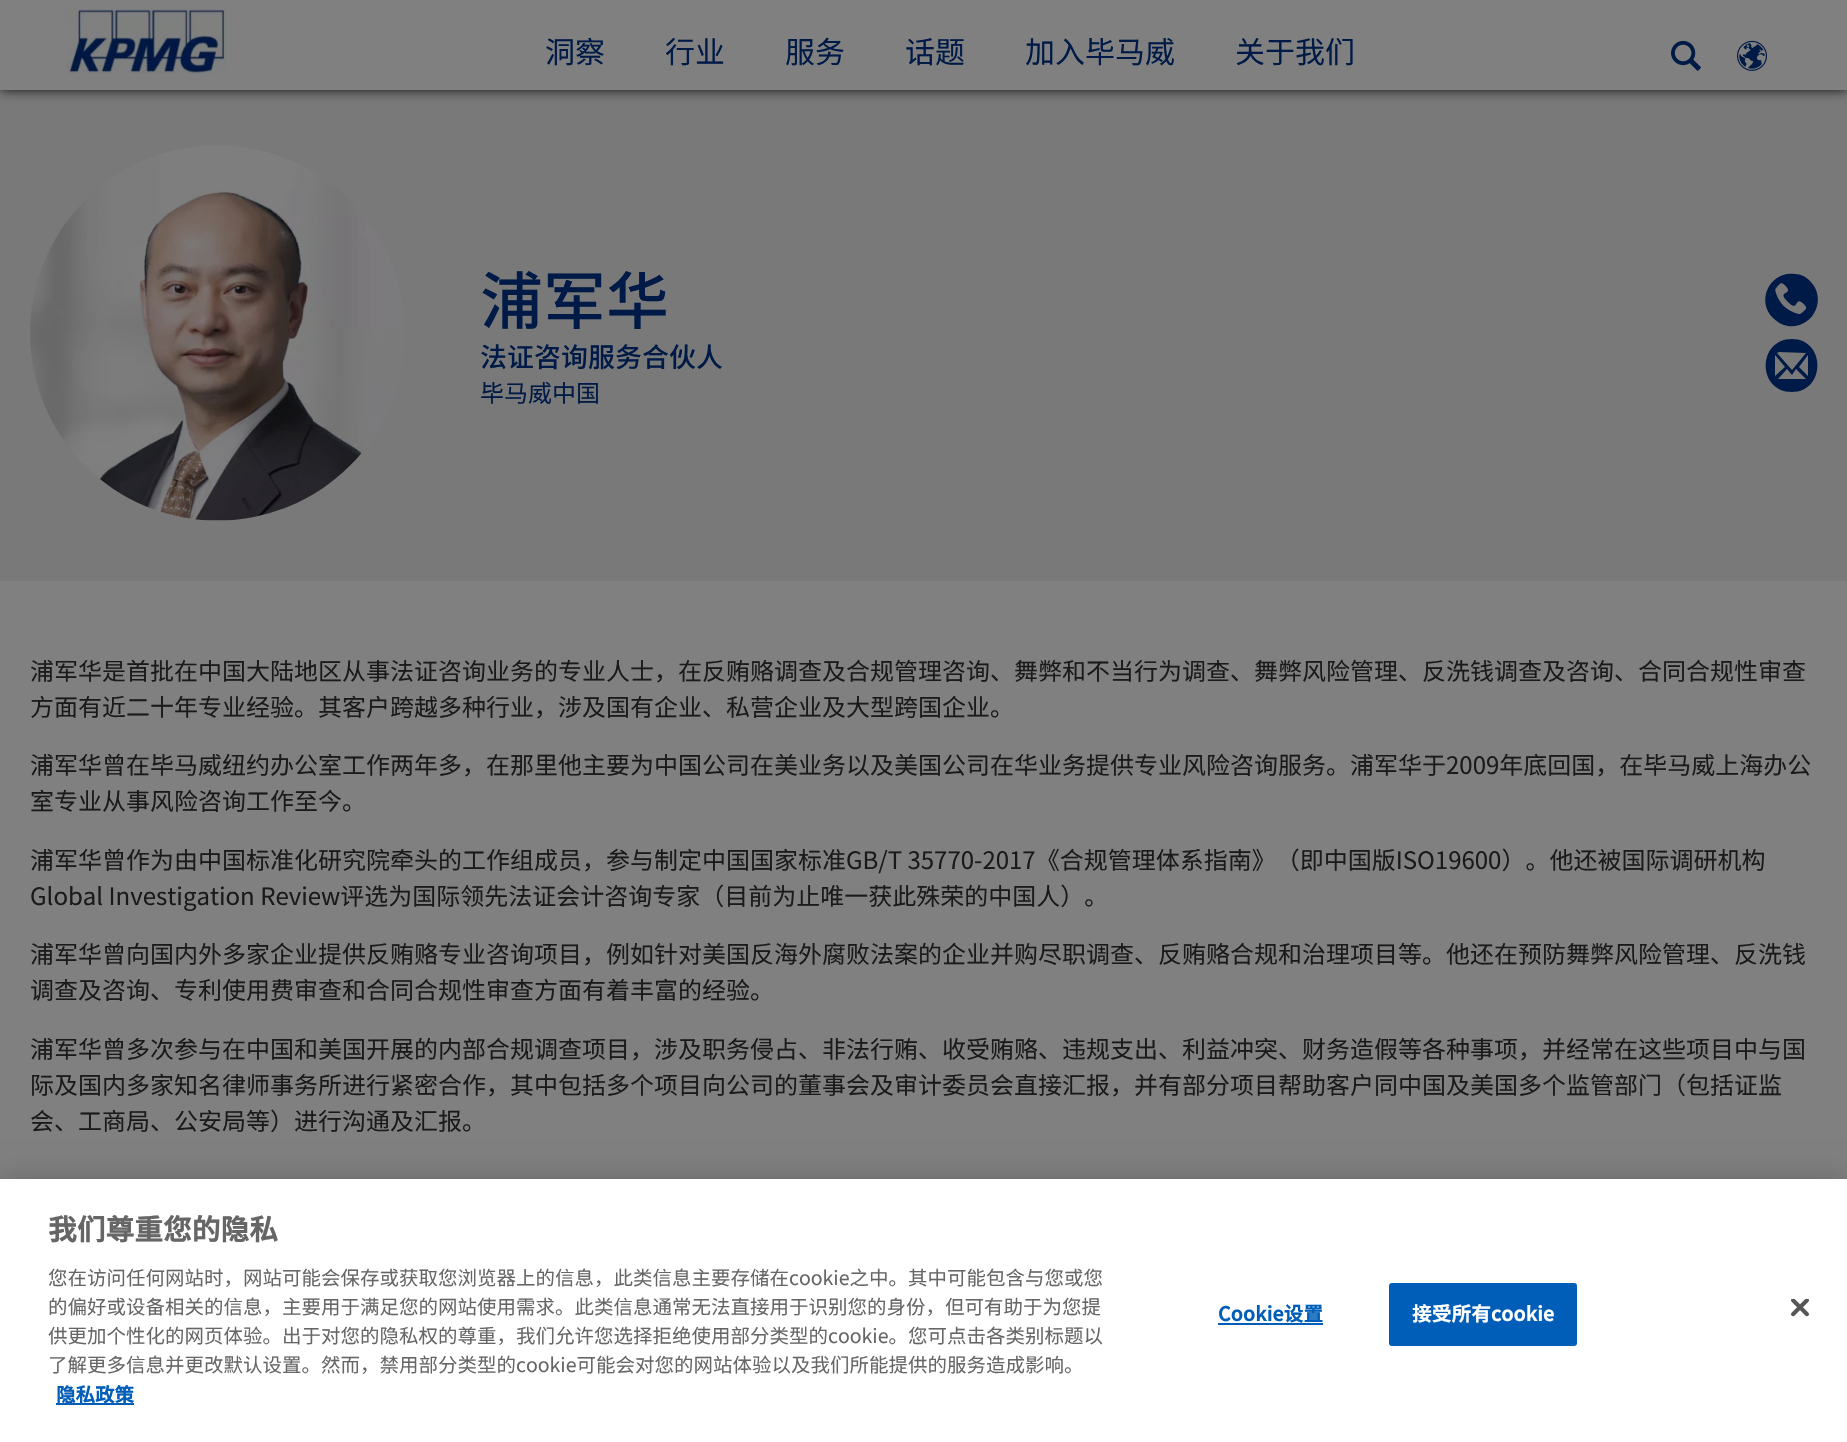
static SkFont makeFont(const char* family, int weight, float size, bool italic = false) {
  SkFontStyle style(weight, SkFontStyle::kNormal_Width,
    italic ? SkFontStyle::kItalic_Slant : SkFontStyle::kUpright_Slant);
  SkFont result(fontMgr->matchFamilyStyle(family, style), size);
  result.setSubpixel(true);
  return result;
}

static void text(SkCanvas* c, const char* s, float x, float y, const SkFont& font, SkColor color) {
  SkPaint ink(SkColor4f::FromColor(color));
  ink.setAntiAlias(true);
  c->drawString(s, x, y, font, ink);
}

static void spacedText(SkCanvas* c, const char* s, float x, float y, const SkFont& font, const SkPaint& ink, float letter, float word) {
  std::vector<SkGlyphID> glyphs(font.countText(s, strlen(s), SkTextEncoding::kUTF8));
  std::vector<float> xs(glyphs.size());
  font.textToGlyphs(s, strlen(s), SkTextEncoding::kUTF8, glyphs);
  font.getXPos(glyphs, xs, x);
  float extra = 0;
  for (size_t i = 0; i < glyphs.size(); i++) {
    xs[i] += extra;
    extra += letter + word * (glyphs[i] == font.unicharToGlyph(' '));
  }
  c->drawTextBlob(SkTextBlob::MakeFromPosHGlyphs(glyphs, xs, y, font), 0, 0, ink);
}

static void box(SkCanvas* c, float l, float t, float r, float b, SkColor color) {
  SkPaint ink(SkColor4f::FromColor(color));
  ink.setAntiAlias(true);
  c->drawRect(SkRect::MakeLTRB(l, t, r, b), ink);
}

static void picture(SkCanvas* c, const char* path, float l, float t, float r, float b) {
  auto image = SkImages::DeferredFromEncodedData(SkData::MakeFromFileName(path));
  c->drawImageRect(image, SkRect::MakeLTRB(l, t, r, b), SkSamplingOptions());
}

void draw(SkCanvas* c) {
  SkPaint paint;
  paint.setAntiAlias(true);
  c->clear(0xff808080);
  box(c, 0, 90, 1847, 581, 0xff797979);
  paint.setColor(0xff000000);
  paint.setMaskFilter(SkMaskFilter::MakeBlur(kNormal_SkBlurStyle, 6));
  c->drawRect(SkRect::MakeLTRB(0, -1, 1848, 89), paint);
  paint.setMaskFilter(nullptr);
  box(c, 0, 0, 1847, 90, 0xff808080);
  picture(c, "img_01.png", 66, 9, 228, 74);
  SkFont face1 = makeFont("Noto Sans SC", 400, 30);
  text(c, "洞察", 545, 63, face1, 0xff001a47);
  text(c, "行业", 665, 63, face1, 0xff001a47);
  text(c, "服务", 785, 63, face1, 0xff001a47);
  text(c, "话题", 905, 63, face1, 0xff001a47);
  text(c, "加入毕马威", 1025, 63, face1, 0xff001a47);
  text(c, "关于我们", 1235, 63, face1, 0xff001a47);
  picture(c, "img_02.png", 1671, 40, 1701, 71);
  picture(c, "img_03.png", 1737, 40, 1767, 71);
  picture(c, "img_04.png", 30, 146, 405, 521);
  SkFont face2 = makeFont("Noto Sans SC", 500, 63);
  text(c, "浦军华", 480, 324, face2, 0xff001a47);
  SkFont face3 = makeFont("Noto Sans SC", 500, 27);
  text(c, "法证咨询服务合伙人", 480, 367, face3, 0xff001a47);
  SkFont face4 = makeFont("Noto Sans SC", 400, 24);
  text(c, "毕马威中国", 480, 402, face4, 0xff001a47);
  paint.setColor(0xff001a47);
  c->drawPath(SkPathBuilder().moveTo(1810, 281).cubicTo(1806, 277, 1801, 274, 1795, 274).cubicTo(1771, 270, 1755, 300, 1773, 318).cubicTo(1777, 322, 1782, 325, 1788, 326).cubicTo(1813, 329, 1828, 299, 1810, 281).close().detach(), paint);
  picture(c, "img_05.png", 1775, 283, 1807, 314);
  c->drawPath(SkPathBuilder().moveTo(1792, 339).cubicTo(1757, 339, 1757, 392, 1792, 392).cubicTo(1826, 392, 1826, 339, 1792, 339).close().moveTo(1779, 352).lineTo(1806, 353).lineTo(1792, 370).lineTo(1777, 353).close().moveTo(1775, 375).lineTo(1775, 355).lineTo(1785, 367).lineTo(1775, 376).close().moveTo(1805, 379).lineTo(1778, 379).lineTo(1787, 369).lineTo(1792, 375).lineTo(1796, 369).lineTo(1806, 379).close().moveTo(1808, 375).lineTo(1808, 376).lineTo(1799, 367).lineTo(1808, 355).close().detach(), paint);
  text(c, "浦军华是首批在中国大陆地区从事法证咨询业务的专业人士，在反贿赂调查及合规管理咨询、舞弊和不当行为调查、舞弊风险管理、反洗钱调查及咨询、合同合规性审查", 30, 680, face4, 0xff1a1a1a);
  text(c, "方面有近二十年专业经验。其客户跨越多种行业，涉及国有企业、私营企业及大型跨国企业。", 30, 716, face4, 0xff1a1a1a);
  text(c, "浦军华曾在毕马威纽约办公室工作两年多，在那里他主要为中国公司在美业务以及美国公司在华业务提供专业风险咨询服务。浦军华于2009年底回国，在毕马威上海办公", 30, 774, face4, 0xff1a1a1a);
  text(c, "室专业从事风险咨询工作至今。", 30, 810, face4, 0xff1a1a1a);
  text(c, "浦军华曾作为由中国标准化研究院牵头的工作组成员，参与制定中国国家标准GB/T 35770-2017《合规管理体系指南》（即中国版ISO19600）。他还被国际调研机构", 30, 869, face4, 0xff1a1a1a);
  text(c, "Global Investigation Review评选为国际领先法证会计咨询专家（目前为止唯一获此殊荣的中国人）。", 30, 905, face4, 0xff1a1a1a);
  text(c, "浦军华曾向国内外多家企业提供反贿赂专业咨询项目，例如针对美国反海外腐败法案的企业并购尽职调查、反贿赂合规和治理项目等。他还在预防舞弊风险管理、反洗钱", 30, 963, face4, 0xff1a1a1a);
  text(c, "调查及咨询、专利使用费审查和合同合规性审查方面有着丰富的经验。", 30, 999, face4, 0xff1a1a1a);
  text(c, "浦军华曾多次参与在中国和美国开展的内部合规调查项目，涉及职务侵占、非法行贿、收受贿赂、违规支出、利益冲突、财务造假等各种事项，并经常在这些项目中与国", 30, 1058, face4, 0xff1a1a1a);
  text(c, "际及国内多家知名律师事务所进行紧密合作，其中包括多个项目向公司的董事会及审计委员会直接汇报，并有部分项目帮助客户同中国及美国多个监管部门（包括证监", 30, 1094, face4, 0xff1a1a1a);
  text(c, "会、工商局、公安局等）进行沟通及汇报。", 30, 1130, face4, 0xff1a1a1a);
  paint.setColor(0x33000000);
  paint.setMaskFilter(SkMaskFilter::MakeBlur(kNormal_SkBlurStyle, 13.5f));
  c->drawRect(SkRect::MakeLTRB(0, 1179, 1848, 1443), paint);
  paint.setMaskFilter(nullptr);
  box(c, 0, 1179, 1847, 1442, 0xffffffff);
  SkFont face5 = makeFont("Noto Sans SC", 700, 28.75f);
  text(c, "我们尊重您的隐私", 48, 1240, face5, 0xff666666);
  SkFont face6 = makeFont("Noto Sans SC", 400, 19.5f);
  text(c, "您在访问任何网站时，网站可能会保存或获取您浏览器上的信息，此类信息主要存储在cookie之中。其中可能包含与您或您", 48, 1285, face6, 0xff666666);
  text(c, "的偏好或设备相关的信息，主要用于满足您的网站使用需求。此类信息通常无法直接用于识别您的身份，但可有助于为您提", 48, 1314, face6, 0xff666666);
  text(c, "供更加个性化的网页体验。出于对您的隐私权的尊重，我们允许您选择拒绝使用部分类型的cookie。您可点击各类别标题以", 48, 1343, face6, 0xff666666);
  text(c, "了解更多信息并更改默认设置。然而，禁用部分类型的cookie可能会对您的网站体验以及我们所能提供的服务造成影响。", 48, 1372, face6, 0xff666666);
  box(c, 56, 1403, 134, 1405, 0xff005eb8);
  SkFont face7 = makeFont("Noto Sans SC", 700, 19.5f);
  text(c, "隐私政策", 56, 1402, face7, 0xff005eb8);
  paint.setColor(0xff005eb8);
  spacedText(c, "Cookie设置", 1218, 1321, face7, paint, 0.25f, 0);
  box(c, 1218, 1323, 1323, 1325, 0xff005eb8);
  c->drawRoundRect(SkRect::MakeLTRB(1390, 1284, 1576, 1345), 2, 2, paint);
  paint.setStyle(SkPaint::kStroke_Style);
  paint.setStrokeWidth(2);
  c->drawRoundRect(SkRect::MakeLTRB(1390, 1284, 1576, 1345), 2, 2, paint);
  paint.setStyle(SkPaint::kFill_Style);
  paint.setColor(0xffffffff);
  spacedText(c, "接受所有cookie", 1412, 1321, face7, paint, 0.25f, 0);
  picture(c, "img_06.png", 1791, 1299, 1809, 1317);
}
